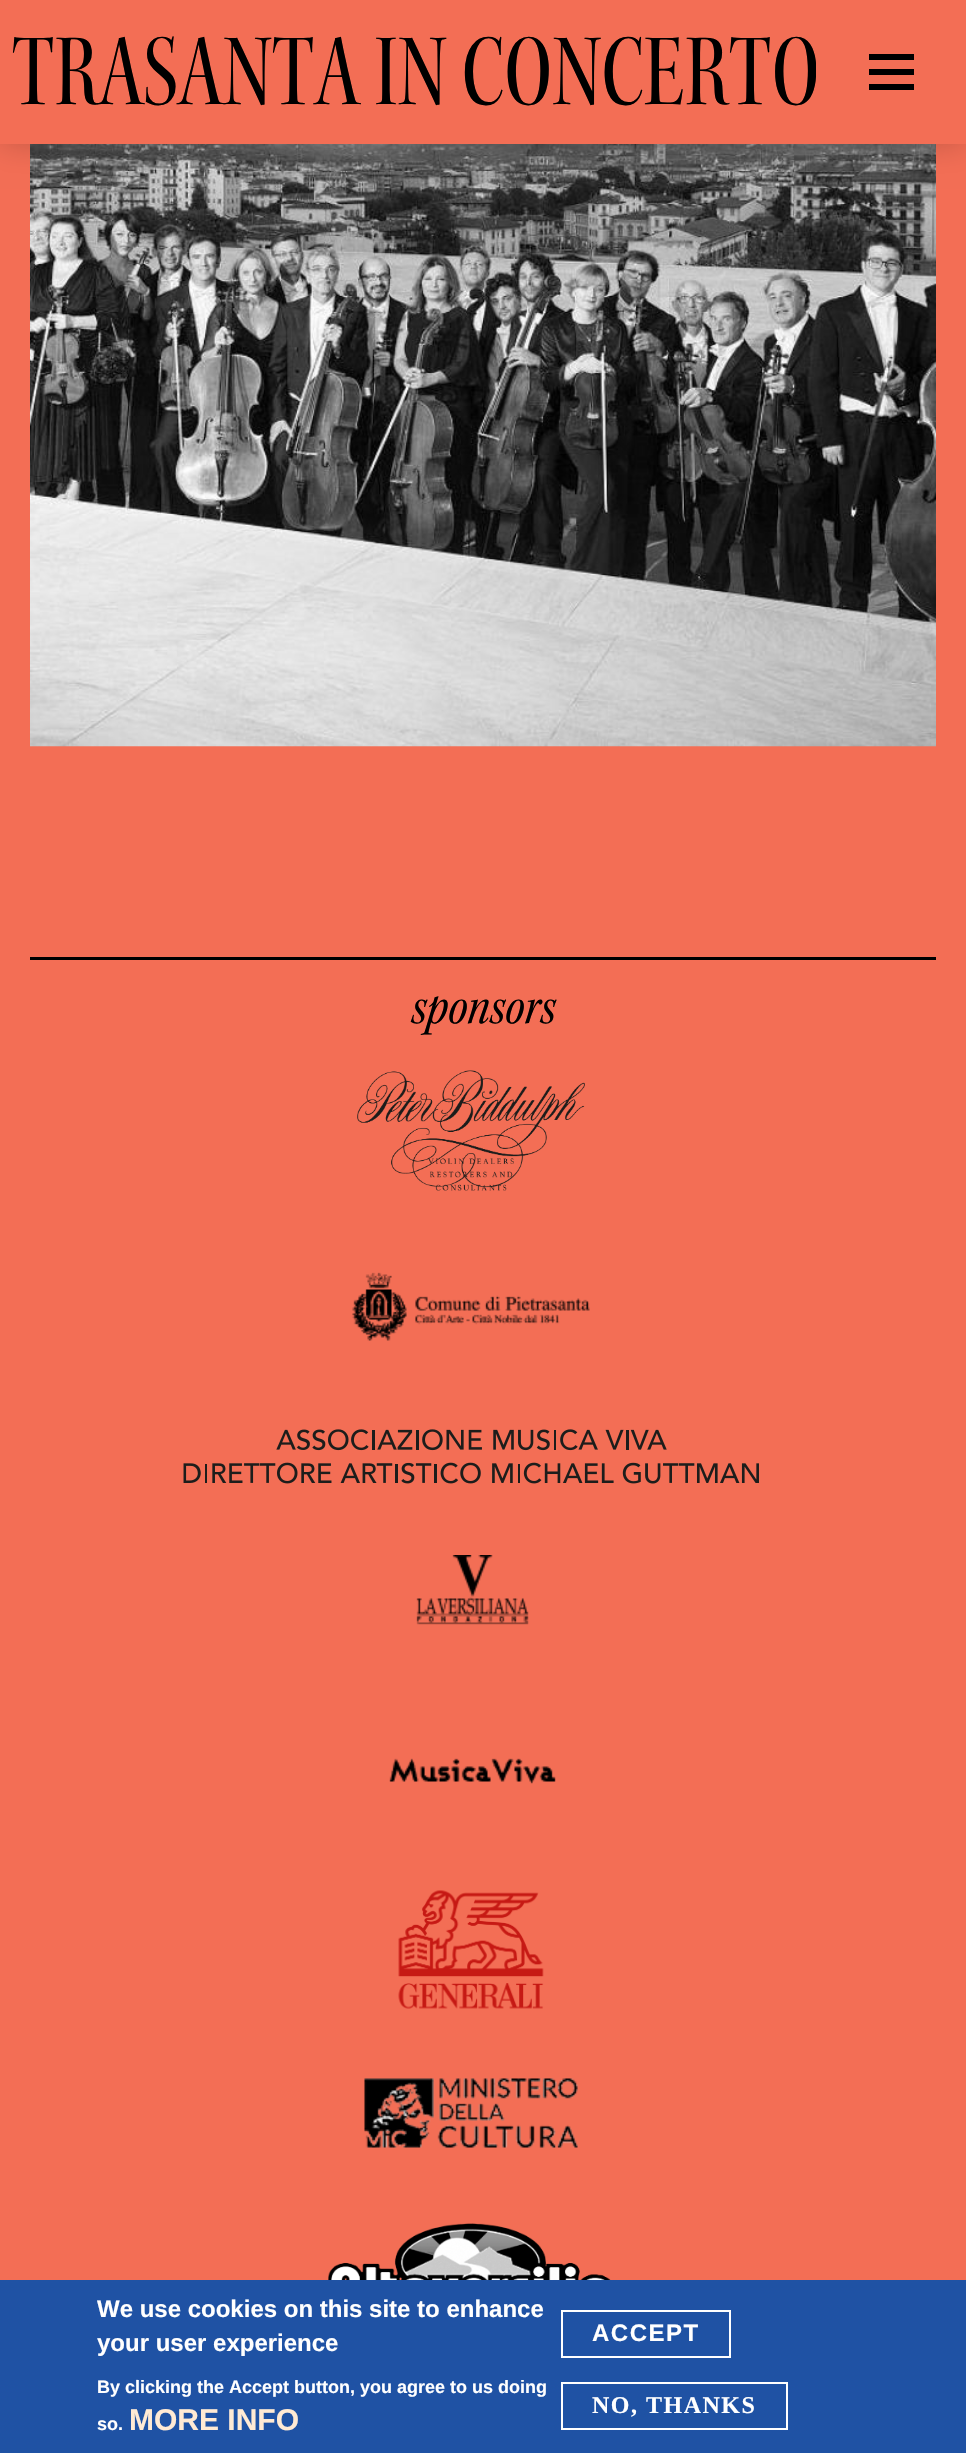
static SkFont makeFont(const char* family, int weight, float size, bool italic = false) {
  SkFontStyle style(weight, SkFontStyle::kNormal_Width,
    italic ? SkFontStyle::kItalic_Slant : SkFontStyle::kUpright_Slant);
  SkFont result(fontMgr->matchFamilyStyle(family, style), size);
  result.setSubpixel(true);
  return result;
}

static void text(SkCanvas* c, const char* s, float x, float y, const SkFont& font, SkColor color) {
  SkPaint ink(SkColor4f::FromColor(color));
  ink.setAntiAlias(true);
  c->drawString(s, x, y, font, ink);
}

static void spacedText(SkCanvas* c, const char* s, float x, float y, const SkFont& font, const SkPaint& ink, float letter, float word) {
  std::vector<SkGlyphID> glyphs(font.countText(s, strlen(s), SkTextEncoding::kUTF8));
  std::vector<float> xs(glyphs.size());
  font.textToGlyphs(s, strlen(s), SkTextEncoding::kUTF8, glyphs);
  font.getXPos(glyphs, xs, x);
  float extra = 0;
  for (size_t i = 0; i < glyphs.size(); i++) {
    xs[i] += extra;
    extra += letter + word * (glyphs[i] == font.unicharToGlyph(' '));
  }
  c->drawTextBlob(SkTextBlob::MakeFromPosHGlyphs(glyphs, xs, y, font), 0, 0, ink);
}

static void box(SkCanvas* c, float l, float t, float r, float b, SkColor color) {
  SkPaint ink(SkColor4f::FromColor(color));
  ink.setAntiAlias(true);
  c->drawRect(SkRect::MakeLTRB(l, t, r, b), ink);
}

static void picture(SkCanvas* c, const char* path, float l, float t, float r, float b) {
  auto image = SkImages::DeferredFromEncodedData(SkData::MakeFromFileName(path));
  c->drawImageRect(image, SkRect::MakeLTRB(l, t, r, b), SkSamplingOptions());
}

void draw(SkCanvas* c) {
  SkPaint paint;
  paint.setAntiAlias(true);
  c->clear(0xfff36e55);
  picture(c, "img_01.png", 30, 144, 936, 747);
  paint.setColor(0x33000000);
  paint.setMaskFilter(SkMaskFilter::MakeBlur(kNormal_SkBlurStyle, 15));
  c->drawRect(SkRect::MakeLTRB(0, 0, 966, 144), paint);
  paint.setMaskFilter(nullptr);
  box(c, 0, 0, 966, 144, 0xfff36e55);
  c->save();
  c->clipRect(SkRect::MakeLTRB(0, 35, 816, 110));
  SkFont face1 = makeFont("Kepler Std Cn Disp", 400, 106.5f);
  paint.setColor(0xff000000);
  spacedText(c, "TRASANTA IN CONCERTO", 12, 104, face1, paint, 0.6f, 0);
  c->restore();
  box(c, 869, 69, 914, 75, 0xff000000);
  box(c, 869, 54, 914, 60, 0xff000000);
  box(c, 869, 84, 914, 90, 0xff000000);
  box(c, 30, 957, 936, 960, 0xff000000);
  SkFont face2 = makeFont("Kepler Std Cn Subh", 400, 54, true);
  text(c, "sponsors", 411, 1023, face2, 0xff000000);
  picture(c, "img_02.png", 357, 1070, 585, 1191);
  picture(c, "img_03.png", 352, 1272, 590, 1341);
  picture(c, "img_04.png", 183, 1429, 759, 1484);
  picture(c, "img_05.png", 416, 1555, 529, 1625);
  picture(c, "img_06.png", 389, 1758, 556, 1784);
  picture(c, "img_07.png", 398, 1890, 544, 2009);
  picture(c, "img_08.png", 364, 2078, 578, 2148);
  picture(c, "img_09.png", 328, 2223, 611, 2280);
  box(c, 0, 2280, 966, 2453, 0xff1f52a4);
  SkFont face3 = makeFont("Liberation Sans", 700, 24);
  text(c, "We use cookies on this site to enhance", 97, 2317, face3, 0xffffffff);
  text(c, "your user experience", 97, 2351, face3, 0xffffffff);
  SkFont face4 = makeFont("Liberation Sans", 700, 18);
  text(c, "By clicking the Accept button, you agree to us doing", 97, 2393, face4, 0xffffffff);
  text(c, "so.", 97, 2430, face4, 0xffffffff);
  SkFont face5 = makeFont("Liberation Sans", 700, 30);
  text(c, "MORE INFO", 129, 2430, face5, 0xffffead4);
  paint.setStyle(SkPaint::kStroke_Style);
  paint.setStrokeWidth(2);
  paint.setColor(0xffffffff);
  c->drawRect(SkRect::MakeLTRB(562, 2311, 730, 2357), paint);
  paint.setStyle(SkPaint::kFill_Style);
  spacedText(c, "ACCEPT", 592, 2341, face3, paint, 1.5f, 0);
  paint.setStyle(SkPaint::kStroke_Style);
  c->drawRect(SkRect::MakeLTRB(562, 2383, 787, 2429), paint);
  SkFont face6 = makeFont("Liberation Serif", 700, 24);
  paint.setStyle(SkPaint::kFill_Style);
  spacedText(c, "NO, THANKS", 592, 2413, face6, paint, 1.5f, 0);
}
